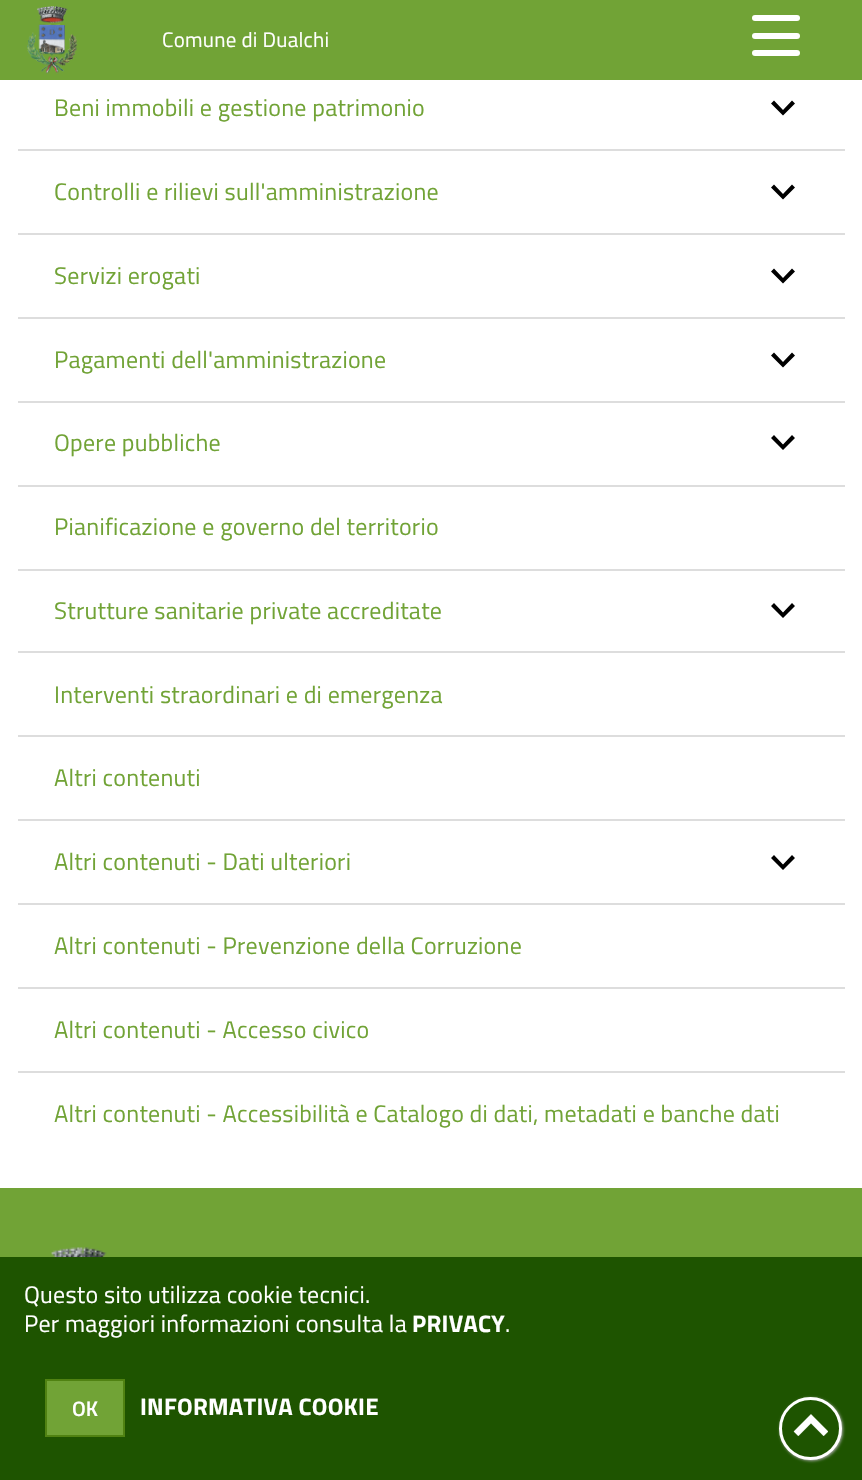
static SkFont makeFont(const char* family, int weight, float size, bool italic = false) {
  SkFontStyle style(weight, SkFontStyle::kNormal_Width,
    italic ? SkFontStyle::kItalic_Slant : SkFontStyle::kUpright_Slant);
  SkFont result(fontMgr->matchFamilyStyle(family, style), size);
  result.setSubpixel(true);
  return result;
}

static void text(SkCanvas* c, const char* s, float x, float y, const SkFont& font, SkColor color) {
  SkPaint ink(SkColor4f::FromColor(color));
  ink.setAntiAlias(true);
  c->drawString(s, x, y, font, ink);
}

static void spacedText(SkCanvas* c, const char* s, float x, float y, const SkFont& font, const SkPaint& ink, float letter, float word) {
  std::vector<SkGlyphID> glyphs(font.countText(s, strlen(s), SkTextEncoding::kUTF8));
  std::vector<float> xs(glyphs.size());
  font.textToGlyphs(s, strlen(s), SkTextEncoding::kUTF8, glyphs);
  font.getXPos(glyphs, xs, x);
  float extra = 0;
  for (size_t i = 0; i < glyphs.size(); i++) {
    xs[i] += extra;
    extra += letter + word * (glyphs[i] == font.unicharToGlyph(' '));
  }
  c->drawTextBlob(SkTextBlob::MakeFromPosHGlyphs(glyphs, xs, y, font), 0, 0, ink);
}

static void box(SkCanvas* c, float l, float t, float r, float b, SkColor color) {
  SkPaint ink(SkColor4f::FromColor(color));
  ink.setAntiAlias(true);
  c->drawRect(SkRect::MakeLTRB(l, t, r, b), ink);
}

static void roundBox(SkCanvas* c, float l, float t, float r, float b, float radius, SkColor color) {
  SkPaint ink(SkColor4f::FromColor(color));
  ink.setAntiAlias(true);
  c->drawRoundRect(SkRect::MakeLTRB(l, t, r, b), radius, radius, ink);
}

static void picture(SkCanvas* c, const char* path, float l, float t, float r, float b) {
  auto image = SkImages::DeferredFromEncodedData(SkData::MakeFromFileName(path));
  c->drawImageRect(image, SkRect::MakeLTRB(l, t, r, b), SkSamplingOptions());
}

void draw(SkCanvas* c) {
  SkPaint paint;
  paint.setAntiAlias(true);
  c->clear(0xffffffff);
  box(c, 0, 0, 862, 80, 0xff71a336);
  picture(c, "img_01.png", 27, 6, 78, 74);
  SkFont face1 = makeFont("Titillium Web", 400, 21);
  paint.setColor(0xffffffff);
  spacedText(c, "Comune di Dualchi", 162, 47, face1, paint, 0.25f, 0);
  roundBox(c, 752, 33, 800, 39, 3, 0xffffffff);
  roundBox(c, 752, 15, 800, 21, 3, 0xffffffff);
  roundBox(c, 752, 50, 800, 56, 3, 0xffffffff);
  SkFont face2 = makeFont("Titillium Web", 400, 24);
  paint.setColor(0xff71a336);
  spacedText(c, "Beni immobili e gestione patrimonio", 54, 116, face2, paint, 0.25f, 0);
  paint.setColor(0xff000000);
  c->drawPath(SkPathBuilder().moveTo(774, 100.5f).lineTo(771, 103.5f).lineTo(783, 115.5f).lineTo(795, 103.5f).lineTo(792, 100.5f).lineTo(783, 110).close().detach(), paint);
  box(c, 18, 149, 845, 151, 0xffdddddd);
  paint.setColor(0xff71a336);
  spacedText(c, "Controlli e rilievi sull'amministrazione", 54, 200, face2, paint, 0.25f, 0);
  paint.setColor(0xff000000);
  c->drawPath(SkPathBuilder().moveTo(774, 184.5f).lineTo(771, 187.5f).lineTo(783, 199.5f).lineTo(795, 187.5f).lineTo(792, 184.5f).lineTo(783, 194).close().detach(), paint);
  box(c, 18, 233, 845, 235, 0xffdddddd);
  paint.setColor(0xff71a336);
  spacedText(c, "Servizi erogati", 54, 284, face2, paint, 0.25f, 0);
  paint.setColor(0xff000000);
  c->drawPath(SkPathBuilder().moveTo(774, 268.5f).lineTo(771, 271.5f).lineTo(783, 283.5f).lineTo(795, 271.5f).lineTo(792, 268.5f).lineTo(783, 278).close().detach(), paint);
  box(c, 18, 317, 845, 319, 0xffdddddd);
  paint.setColor(0xff71a336);
  spacedText(c, "Pagamenti dell'amministrazione", 54, 368, face2, paint, 0.25f, 0);
  paint.setColor(0xff000000);
  c->drawPath(SkPathBuilder().moveTo(774, 352.5f).lineTo(771, 355.5f).lineTo(783, 367.5f).lineTo(795, 355.5f).lineTo(792, 352.5f).lineTo(783, 362).close().detach(), paint);
  box(c, 18, 401, 845, 403, 0xffdddddd);
  paint.setColor(0xff71a336);
  spacedText(c, "Opere pubbliche", 54, 451, face2, paint, 0.25f, 0);
  paint.setColor(0xff000000);
  c->drawPath(SkPathBuilder().moveTo(774, 435).lineTo(771, 438).lineTo(783, 450).lineTo(795, 438).lineTo(792, 435).lineTo(783, 444.5f).close().detach(), paint);
  box(c, 18, 485, 845, 487, 0xffdddddd);
  paint.setColor(0xff71a336);
  spacedText(c, "Pianificazione e governo del territorio", 54, 535, face2, paint, 0.25f, 0);
  box(c, 18, 569, 845, 571, 0xffdddddd);
  spacedText(c, "Strutture sanitarie private accreditate", 54, 619, face2, paint, 0.25f, 0);
  paint.setColor(0xff000000);
  c->drawPath(SkPathBuilder().moveTo(774, 603).lineTo(771, 606).lineTo(783, 618).lineTo(795, 606).lineTo(792, 603).lineTo(783, 612.5f).close().detach(), paint);
  box(c, 18, 651, 845, 653, 0xffdddddd);
  paint.setColor(0xff71a336);
  spacedText(c, "Interventi straordinari e di emergenza", 54, 703, face2, paint, 0.25f, 0);
  box(c, 18, 735, 845, 737, 0xffdddddd);
  spacedText(c, "Altri contenuti", 54, 786, face2, paint, 0.25f, 0);
  box(c, 18, 819, 845, 821, 0xffdddddd);
  spacedText(c, "Altri contenuti - Dati ulteriori", 54, 870, face2, paint, 0.25f, 0);
  paint.setColor(0xff000000);
  c->drawPath(SkPathBuilder().moveTo(774, 855).lineTo(771, 858).lineTo(783, 870).lineTo(795, 858).lineTo(792, 855).lineTo(783, 864.5f).close().detach(), paint);
  box(c, 18, 903, 845, 905, 0xffdddddd);
  paint.setColor(0xff71a336);
  spacedText(c, "Altri contenuti - Prevenzione della Corruzione", 54, 954, face2, paint, 0.25f, 0);
  box(c, 18, 987, 845, 989, 0xffdddddd);
  spacedText(c, "Altri contenuti - Accesso civico", 54, 1038, face2, paint, 0.25f, 0);
  box(c, 18, 1071, 845, 1073, 0xffdddddd);
  spacedText(c, "Altri contenuti - Accessibilità e Catalogo di dati, metadati e banche dati", 54, 1122, face2, paint, 0.25f, 0);
  box(c, 0, 1188, 862, 1257, 0xff71a336);
  picture(c, "img_02.png", 51, 1247, 107, 1257);
  box(c, 0, 1257, 862, 1480, 0xff1e5400);
  paint.setColor(0xffffffff);
  spacedText(c, "Questo sito utilizza cookie tecnici.", 24, 1303, face2, paint, 0.25f, 0);
  spacedText(c, "Per maggiori informazioni consulta la", 24, 1332, face2, paint, 0.25f, 0);
  SkFont face3 = makeFont("Titillium Web", 700, 24);
  spacedText(c, "PRIVACY", 412, 1332, face3, paint, 0.25f, 0);
  spacedText(c, ".", 505, 1332, face2, paint, 0.25f, 0);
  paint.setColor(0xff71a336);
  c->drawRect(SkRect::MakeLTRB(46, 1380, 124, 1436), paint);
  paint.setStyle(SkPaint::kStroke_Style);
  paint.setStrokeWidth(2);
  paint.setColor(0xff508212);
  c->drawRect(SkRect::MakeLTRB(46, 1380, 124, 1436), paint);
  SkFont face4 = makeFont("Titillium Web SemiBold", 600, 21);
  text(c, "OK", 72, 1416, face4, 0xffffffff);
  paint.setStyle(SkPaint::kFill_Style);
  paint.setColor(0xffffffff);
  spacedText(c, "INFORMATIVA COOKIE", 140, 1415, face3, paint, 0.25f, 0);
  paint.setColor(0xffaaaaaa);
  paint.setMaskFilter(SkMaskFilter::MakeBlur(kNormal_SkBlurStyle, 1.5f));
  c->drawRoundRect(SkRect::MakeLTRB(780, 1398, 843, 1461), 31.5f, 31.5f, paint);
  paint.setMaskFilter(nullptr);
  paint.setColor(0xff1e5400);
  c->drawCircle(810.5f, 1428.5f, 30, paint);
  paint.setStyle(SkPaint::kStroke_Style);
  paint.setStrokeWidth(3);
  paint.setColor(0xffffffff);
  c->drawCircle(810.5f, 1428.5f, 30, paint);
  SkFont face5 = makeFont("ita", 700, 33);
  text(c, "⏷", 794, 1440, face5, 0xffffffff);
}
